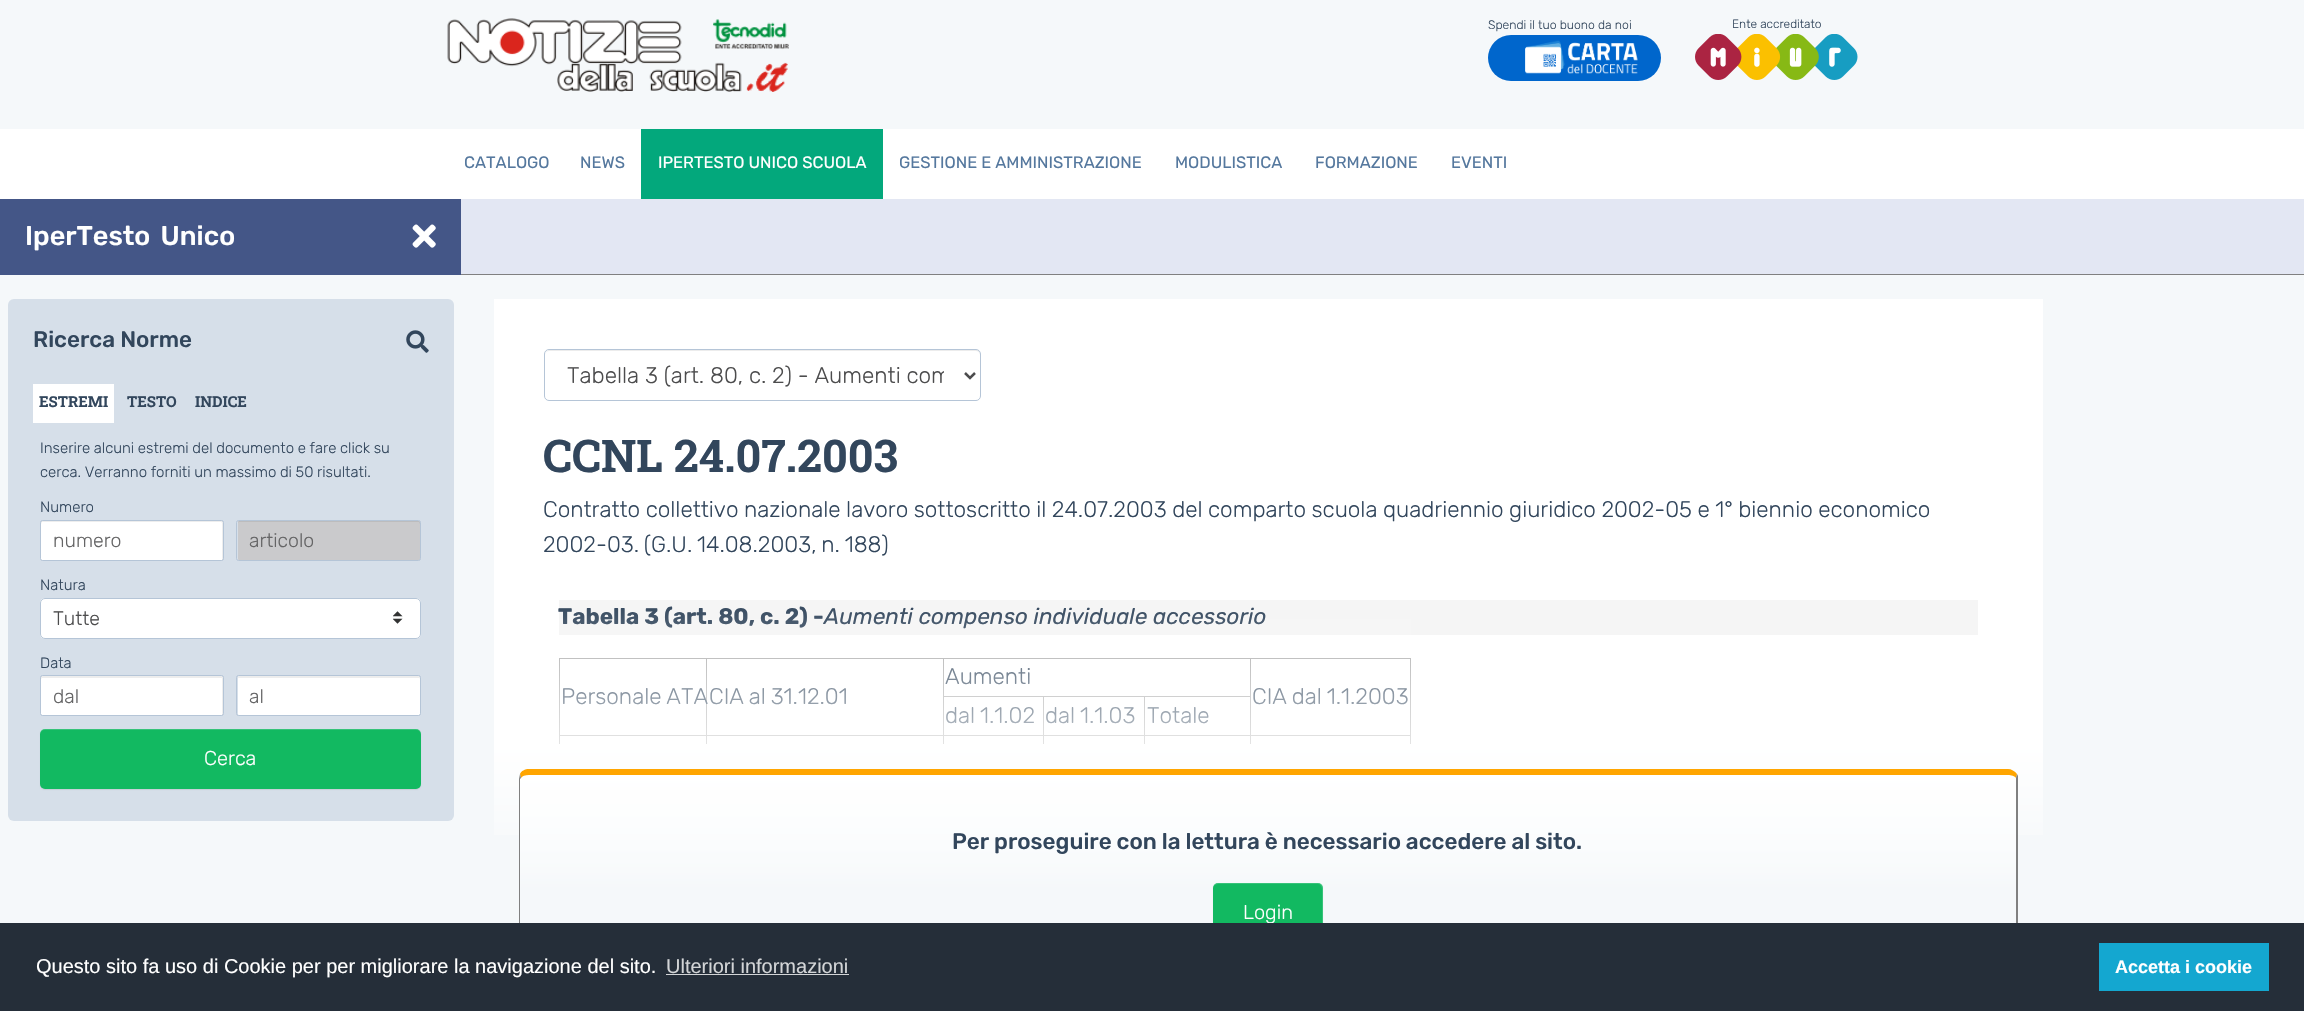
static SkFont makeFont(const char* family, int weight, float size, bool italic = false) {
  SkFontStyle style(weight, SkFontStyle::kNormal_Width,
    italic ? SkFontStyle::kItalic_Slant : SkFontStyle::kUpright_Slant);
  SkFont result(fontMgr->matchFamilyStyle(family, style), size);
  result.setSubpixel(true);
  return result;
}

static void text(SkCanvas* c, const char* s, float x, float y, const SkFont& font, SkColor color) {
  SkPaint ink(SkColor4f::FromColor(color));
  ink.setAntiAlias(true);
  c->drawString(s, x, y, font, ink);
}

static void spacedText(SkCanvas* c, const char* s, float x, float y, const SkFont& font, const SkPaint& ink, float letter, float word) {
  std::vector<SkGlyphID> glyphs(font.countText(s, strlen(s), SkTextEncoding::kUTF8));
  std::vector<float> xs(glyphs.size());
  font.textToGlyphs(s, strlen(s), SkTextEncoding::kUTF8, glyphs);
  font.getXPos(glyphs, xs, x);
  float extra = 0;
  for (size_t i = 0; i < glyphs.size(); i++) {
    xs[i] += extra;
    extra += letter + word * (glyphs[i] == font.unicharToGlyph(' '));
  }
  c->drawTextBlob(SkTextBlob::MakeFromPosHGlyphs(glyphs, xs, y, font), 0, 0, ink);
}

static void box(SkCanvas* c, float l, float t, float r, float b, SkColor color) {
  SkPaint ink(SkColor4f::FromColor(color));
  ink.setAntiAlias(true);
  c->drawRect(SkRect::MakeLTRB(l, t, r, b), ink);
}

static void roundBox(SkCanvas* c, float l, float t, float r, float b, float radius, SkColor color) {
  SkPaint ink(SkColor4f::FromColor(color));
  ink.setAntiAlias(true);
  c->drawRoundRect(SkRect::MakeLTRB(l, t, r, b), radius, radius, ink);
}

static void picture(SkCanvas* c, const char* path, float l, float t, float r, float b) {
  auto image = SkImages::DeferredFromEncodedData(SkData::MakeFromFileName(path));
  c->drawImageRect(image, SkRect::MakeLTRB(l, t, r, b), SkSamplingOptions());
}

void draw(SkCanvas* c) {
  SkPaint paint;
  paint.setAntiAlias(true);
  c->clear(0xfff5f8fa);
  picture(c, "img_01.png", 447, 18, 789, 92);
  SkFont face1 = makeFont("Rubik", 300, 12.25f);
  text(c, "Spendi il tuo buono da noi", 1488, 29, face1, 0xff32465c);
  roundBox(c, 1488, 35, 1661, 81, 23, 0xff0066cc);
  picture(c, "img_02.png", 1525, 40, 1638, 74);
  SkFont face2 = makeFont("Rubik", 300, 12);
  text(c, "Ente accreditato", 1732, 28, face2, 0xff32465c);
  picture(c, "img_03.png", 1695, 34, 1858, 80);
  box(c, 0, 129, 2304, 199, 0xffffffff);
  SkFont face3 = makeFont("Rubik", 400, 16.5f);
  text(c, "CATALOGO", 464, 168, face3, 0xff55789e);
  text(c, "NEWS", 580, 168, face3, 0xff55789e);
  box(c, 641, 129, 883, 199, 0xff03a87c);
  text(c, "IPERTESTO UNICO SCUOLA", 658, 168, face3, 0xffffffff);
  text(c, "GESTIONE E AMMINISTRAZIONE", 899, 168, face3, 0xff55789e);
  text(c, "MODULISTICA", 1175, 168, face3, 0xff55789e);
  text(c, "FORMAZIONE", 1315, 168, face3, 0xff55789e);
  text(c, "EVENTI", 1451, 168, face3, 0xff55789e);
  box(c, 0, 199, 461, 275, 0xff445687);
  SkFont face4 = makeFont("Rubik", 500, 27);
  paint.setColor(0xffffffff);
  spacedText(c, "IperTesto Unico", 25, 245, face4, paint, 0, 4);
  picture(c, "img_04.png", 412, 224, 436, 248);
  box(c, 461, 199, 2304, 274, 0xffe3e7f3);
  box(c, 461, 274, 2304, 275, 0xff808080);
  roundBox(c, 8, 299, 454, 821, 6, 0xffd6dfe9);
  SkFont face5 = makeFont("Rubik", 500, 22.5f);
  text(c, "Ricerca Norme", 33, 347, face5, 0xff32465c);
  picture(c, "img_05.png", 406, 330, 429, 353);
  box(c, 33, 384, 114, 423, 0xffffffff);
  SkFont face6 = makeFont("Roboto Slab", 700, 15);
  text(c, "ESTREMI", 39, 407, face6, 0xff32465c);
  text(c, "TESTO", 127, 407, face6, 0xff32465c);
  text(c, "INDICE", 195, 407, face6, 0xff32465c);
  SkFont face7 = makeFont("Rubik", 300, 15);
  paint.setColor(0xff32465c);
  spacedText(c, "Inserire alcuni estremi del documento e fare click su", 40, 453, face7, paint, 0, -0.25f);
  spacedText(c, "cerca. Verranno forniti un massimo di 50 risultati.", 40, 477, face7, paint, 0, -0.25f);
  text(c, "Numero", 40, 512, face7, 0xff32465c);
  roundBox(c, 41, 521, 223, 560, 1, 0xffffffff);
  paint.setColor(0x12000000);
  c->drawPath(SkPathBuilder().moveTo(42, 522).lineTo(221, 522).cubicTo(222, 522, 222, 523, 222, 524).lineTo(222, 560).cubicTo(223, 560, 223, 560, 223, 559).lineTo(223, 522).cubicTo(223, 521, 223, 521, 222, 521).lineTo(42, 521).cubicTo(41, 521, 41, 521, 41, 522).lineTo(41, 524).close().detach(), paint);
  paint.setStyle(SkPaint::kStroke_Style);
  paint.setStrokeWidth(1);
  paint.setColor(0xffb5c5d7);
  c->drawRoundRect(SkRect::MakeLTRB(40.5f, 520.5f, 223.5f, 560.5f), 2, 2, paint);
  SkFont face8 = makeFont("Rubik", 300, 19.5f);
  text(c, "numero", 53, 547, face8, 0xff656566);
  roundBox(c, 238, 521, 420, 560, 1, 0xffcacacc);
  paint.setStyle(SkPaint::kFill_Style);
  paint.setColor(0x12000000);
  c->drawPath(SkPathBuilder().moveTo(239, 522).lineTo(419, 522).lineTo(420, 524).cubicTo(420, 523, 420, 521, 419, 521).lineTo(239, 521).cubicTo(238, 521, 238, 523, 238, 524).cubicTo(238, 523, 238, 522, 239, 522).close().detach(), paint);
  paint.setStyle(SkPaint::kStroke_Style);
  paint.setColor(0xffb5c5d7);
  c->drawRoundRect(SkRect::MakeLTRB(236.5f, 520.5f, 420.5f, 560.5f), 2, 2, paint);
  text(c, "articolo", 249, 547, face8, 0xff656566);
  text(c, "Natura", 40, 590, face7, 0xff32465c);
  roundBox(c, 40, 598, 421, 639, 5, 0xffffffff);
  picture(c, "img_06.png", 393, 611, 403, 624);
  c->drawRoundRect(SkRect::MakeLTRB(40.5f, 598.5f, 420.5f, 638.5f), 4.5f, 4.5f, paint);
  text(c, "Tutte", 53, 625, face8, 0xff4c4c4d);
  text(c, "Data", 40, 668, face7, 0xff32465c);
  roundBox(c, 41, 676, 223, 715, 1, 0xffffffff);
  paint.setStyle(SkPaint::kFill_Style);
  paint.setColor(0x12000000);
  c->drawPath(SkPathBuilder().moveTo(42, 678).lineTo(221, 678).cubicTo(222, 678, 222, 678, 222, 679).lineTo(222, 715).cubicTo(223, 715, 223, 715, 223, 714).lineTo(223, 677).cubicTo(223, 676, 223, 676, 222, 676).lineTo(42, 676).cubicTo(41, 676, 41, 676, 41, 677).lineTo(41, 679).close().detach(), paint);
  paint.setStyle(SkPaint::kStroke_Style);
  paint.setColor(0xffb5c5d7);
  c->drawRoundRect(SkRect::MakeLTRB(40.5f, 675.5f, 223.5f, 715.5f), 2, 2, paint);
  text(c, "dal", 53, 703, face8, 0xff656566);
  roundBox(c, 238, 676, 420, 715, 1, 0xffffffff);
  paint.setStyle(SkPaint::kFill_Style);
  paint.setColor(0x12000000);
  c->drawPath(SkPathBuilder().moveTo(239, 678).lineTo(419, 678).cubicTo(419, 678, 420, 678, 420, 679).cubicTo(420, 678, 420, 676, 419, 676).lineTo(239, 676).cubicTo(238, 676, 238, 678, 238, 679).cubicTo(238, 678, 238, 678, 239, 678).close().detach(), paint);
  paint.setStyle(SkPaint::kStroke_Style);
  paint.setColor(0xffb5c5d7);
  c->drawRoundRect(SkRect::MakeLTRB(236.5f, 675.5f, 420.5f, 715.5f), 2, 2, paint);
  text(c, "al", 249, 703, face8, 0xff656566);
  paint.setStyle(SkPaint::kFill_Style);
  paint.setColor(0x12000000);
  paint.setMaskFilter(SkMaskFilter::MakeBlur(kNormal_SkBlurStyle, 0.5f));
  c->drawRoundRect(SkRect::MakeLTRB(40, 730, 421, 790), 5, 5, paint);
  paint.setMaskFilter(nullptr);
  roundBox(c, 40, 729, 421, 789, 5, 0xff12b961);
  paint.setColor(0x26ffffff);
  c->drawPath(SkPathBuilder().moveTo(45, 730).lineTo(416, 730).cubicTo(419, 730, 421, 732, 421, 735).lineTo(421, 734).cubicTo(421, 731, 419, 729, 416, 729).lineTo(45, 729).cubicTo(42, 729, 40, 731, 40, 734).lineTo(40, 735).cubicTo(40, 732, 42, 730, 45, 730).close().detach(), paint);
  SkFont face9 = makeFont("Rubik", 300, 20);
  text(c, "Cerca", 204, 765, face9, 0xffffffff);
  box(c, 494, 299, 2043, 744, 0xffffffff);
  paint.setColor(0xffececec);
  c->drawPath(SkPathBuilder().moveTo(549, 351).lineTo(976, 351).cubicTo(978, 351, 980, 353, 980, 355).cubicTo(980, 352, 979, 350, 976, 350).lineTo(549, 350).lineTo(547, 351).lineTo(546, 352).lineTo(545, 355).cubicTo(545, 353, 547, 351, 549, 351).close().detach(), paint);
  paint.setStyle(SkPaint::kStroke_Style);
  paint.setColor(0xffb5c5d7);
  c->drawRoundRect(SkRect::MakeLTRB(544.5f, 349.5f, 980.5f, 400.5f), 4.5f, 4.5f, paint);
  paint.setStrokeWidth(2.5f);
  paint.setColor(0xff4c4c4d);
  c->drawPath(SkPathBuilder().moveTo(965, 373).lineTo(970, 378).lineTo(975, 373).detach(), paint);
  c->save();
  c->clipRect(SkRect::MakeLTRB(566, 360, 944, 390));
  SkFont face10 = makeFont("Rubik", 300, 22.5f);
  text(c, "Tabella 3 (art. 80, c. 2) - Aumenti com", 567, 383, face10, 0xff4c4c4d);
  c->restore();
  SkFont face11 = makeFont("Roboto Slab", 700, 45);
  text(c, "CCNL 24.07.2003", 543, 472, face11, 0xff32465c);
  paint.setStyle(SkPaint::kFill_Style);
  paint.setColor(0xff32465c);
  spacedText(c, "Contratto collettivo nazionale lavoro sottoscritto il 24.07.2003 del comparto scuola quadriennio giuridico 2002-05 e 1° biennio economico", 543, 517, face10, paint, 0, -0.3f);
  spacedText(c, "2002-03. (G.U. 14.08.2003, n. 188)", 543, 552, face10, paint, 0, -1);
  box(c, 559, 600, 1978, 635, 0xfff5f5f5);
  SkFont face12 = makeFont("Rubik", 700, 22.5f);
  spacedText(c, "Tabella 3 (art. 80, c. 2) -", 558, 624, face12, paint, 0, 0.25f);
  SkFont face13 = makeFont("Rubik", 400, 22.5f, true);
  text(c, "Aumenti compenso individuale accessorio", 824, 624, face13, 0xff32465c);
  box(c, 1250, 658, 1411, 659, 0xffa9a9a9);
  box(c, 1144, 696, 1251, 697, 0xffa9a9a9);
  box(c, 1250, 735, 1411, 736, 0xffa9a9a9);
  box(c, 1250, 735, 1251, 744, 0xffa9a9a9);
  box(c, 1144, 735, 1251, 736, 0xffa9a9a9);
  box(c, 1250, 658, 1251, 736, 0xffa9a9a9);
  box(c, 943, 658, 1251, 659, 0xffa9a9a9);
  box(c, 1144, 735, 1145, 744, 0xffa9a9a9);
  box(c, 1043, 735, 1145, 736, 0xffa9a9a9);
  box(c, 1144, 696, 1145, 736, 0xffa9a9a9);
  box(c, 1043, 696, 1145, 697, 0xffa9a9a9);
  box(c, 1043, 735, 1044, 744, 0xffa9a9a9);
  box(c, 943, 735, 1044, 736, 0xffa9a9a9);
  box(c, 1043, 696, 1044, 736, 0xffa9a9a9);
  box(c, 943, 696, 1044, 697, 0xffa9a9a9);
  box(c, 943, 735, 944, 744, 0xffa9a9a9);
  box(c, 706, 735, 944, 736, 0xffa9a9a9);
  box(c, 943, 696, 944, 736, 0xffa9a9a9);
  box(c, 943, 658, 944, 698, 0xffa9a9a9);
  text(c, "Aumenti", 945, 684, face10, 0xff32465c);
  box(c, 706, 658, 944, 659, 0xffa9a9a9);
  box(c, 706, 735, 707, 744, 0xffa9a9a9);
  box(c, 559, 735, 708, 736, 0xffa9a9a9);
  box(c, 706, 658, 707, 736, 0xffa9a9a9);
  box(c, 559, 658, 708, 659, 0xffa9a9a9);
  box(c, 559, 735, 560, 744, 0xffa9a9a9);
  box(c, 559, 658, 560, 736, 0xffa9a9a9);
  spacedText(c, "Personale ATA", 561, 704, face10, paint, 0, -1);
  spacedText(c, "CIA al 31.12.01", 709, 704, face10, paint, 0, -1);
  box(c, 1410, 735, 1411, 744, 0xffa9a9a9);
  box(c, 1410, 658, 1411, 736, 0xffa9a9a9);
  spacedText(c, "CIA dal 1.1.2003", 1252, 704, face10, paint, 0, -1);
  spacedText(c, "dal 1.1.02", 945, 723, face10, paint, 0, -1);
  spacedText(c, "dal 1.1.03", 1045, 723, face10, paint, 0, -1);
  text(c, "Totale", 1147, 723, face10, 0xff32465c);
  {
    const SkColor colors[] = {0x00ffffff, 0xffffffff};
    const float stops[] = {0, 1};
    const SkPoint ends[] = {{1268, 600}, {1268, 814}};
    paint.setShader(SkGradientShader::MakeLinear(ends, colors, stops, 2, SkTileMode::kClamp));
    paint.setAlpha(255);
  }
  c->drawRect(SkRect::MakeLTRB(559, 606, 1411, 744), paint);
  {
    const SkColor colors[] = {0xffffffff, 0xfff5f8fa};
    const float stops[] = {0, 0.44f};
    const SkPoint ends[] = {{1268, 744}, {1268, 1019}};
    paint.setShader(SkGradientShader::MakeLinear(ends, colors, stops, 2, SkTileMode::kClamp));
    paint.setAlpha(255);
  }
  c->drawRect(SkRect::MakeLTRB(494, 744, 2043, 835), paint);
  paint.setShader(nullptr);
  paint.setColor(0xffffffff);
  c->drawPath(SkPathBuilder().moveTo(529, 775).lineTo(2008, 775).cubicTo(2012, 775, 2016, 777, 2016, 779).lineTo(2016, 984).cubicTo(2016, 989, 2012, 992, 2008, 992).lineTo(529, 992).cubicTo(524, 992, 520, 989, 520, 984).lineTo(520, 779).cubicTo(520, 777, 524, 775, 529, 775).close().detach(), paint);
  {
    const SkColor colors[] = {0x80ffffff, 0xfff5f8fa};
    const float stops[] = {0, 0.54f};
    const SkPoint ends[] = {{1268, 775}, {1268, 993}};
    paint.setShader(SkGradientShader::MakeLinear(ends, colors, stops, 2, SkTileMode::kClamp));
    paint.setAlpha(255);
  }
  c->drawPath(SkPathBuilder().moveTo(529, 775).lineTo(2008, 775).cubicTo(2012, 775, 2016, 777, 2016, 779).lineTo(2016, 984).cubicTo(2016, 989, 2012, 992, 2008, 992).lineTo(529, 992).cubicTo(524, 992, 520, 989, 520, 984).lineTo(520, 779).cubicTo(520, 777, 524, 775, 529, 775).close().detach(), paint);
  paint.setShader(nullptr);
  paint.setColor(0xffffa500);
  c->drawPath(SkPathBuilder().moveTo(529, 769).cubicTo(525, 769, 521, 771, 520, 774).lineTo(521, 778).cubicTo(522, 776, 525, 775, 529, 775).lineTo(2008, 775).cubicTo(2011, 775, 2015, 776, 2016, 778).lineTo(2017, 774).cubicTo(2015, 771, 2011, 769, 2008, 769).close().detach(), paint);
  paint.setColor(0xff808080);
  c->drawPath(SkPathBuilder().moveTo(2018, 987).lineTo(2015, 991).lineTo(2014, 990).cubicTo(2015, 988, 2016, 986, 2016, 984).lineTo(2016, 778).lineTo(2017, 774).lineTo(2018, 776).close().detach(), paint);
  c->drawPath(SkPathBuilder().moveTo(520, 774).lineTo(519, 779).lineTo(519, 984).cubicTo(519, 986, 520, 989, 522, 991).lineTo(523, 990).cubicTo(521, 988, 520, 986, 520, 984).lineTo(520, 779).lineTo(521, 778).close().detach(), paint);
  paint.setColor(0xff32465c);
  spacedText(c, "Per proseguire con la lettura è necessario accedere al sito.", 952, 849, face5, paint, 0, -0.25f);
  paint.setColor(0x12000000);
  paint.setMaskFilter(SkMaskFilter::MakeBlur(kNormal_SkBlurStyle, 0.5f));
  c->drawRoundRect(SkRect::MakeLTRB(1213, 884, 1323, 944), 5, 5, paint);
  paint.setMaskFilter(nullptr);
  roundBox(c, 1213, 883, 1323, 943, 5, 0xff12b961);
  paint.setColor(0x26ffffff);
  c->drawPath(SkPathBuilder().moveTo(1218, 884).lineTo(1318, 884).cubicTo(1320, 884, 1322, 886, 1322, 889).lineTo(1322, 939).lineTo(1321, 942).cubicTo(1322, 941, 1323, 939, 1323, 938).lineTo(1323, 888).cubicTo(1323, 885, 1321, 883, 1318, 883).lineTo(1218, 883).cubicTo(1216, 883, 1214, 884, 1214, 886).cubicTo(1215, 885, 1216, 884, 1218, 884).close().detach(), paint);
  text(c, "Login", 1243, 919, face9, 0xffffffff);
  box(c, 0, 923, 2304, 1011, 0xff252e39);
  SkFont face14 = makeFont("Liberation Sans", 400, 20);
  text(c, "Questo sito fa uso di Cookie per per migliorare la navigazione del sito.", 36, 973, face14, 0xffffffff);
  text(c, "Ulteriori informazioni", 666, 973, face14, 0xffd3d5d7);
  box(c, 666, 974, 849, 975, 0xffd3d5d7);
  box(c, 2099, 943, 2269, 991, 0xff14a7d0);
  SkFont face15 = makeFont("Liberation Sans", 700, 18);
  text(c, "Accetta i cookie", 2115, 973, face15, 0xffffffff);
}
